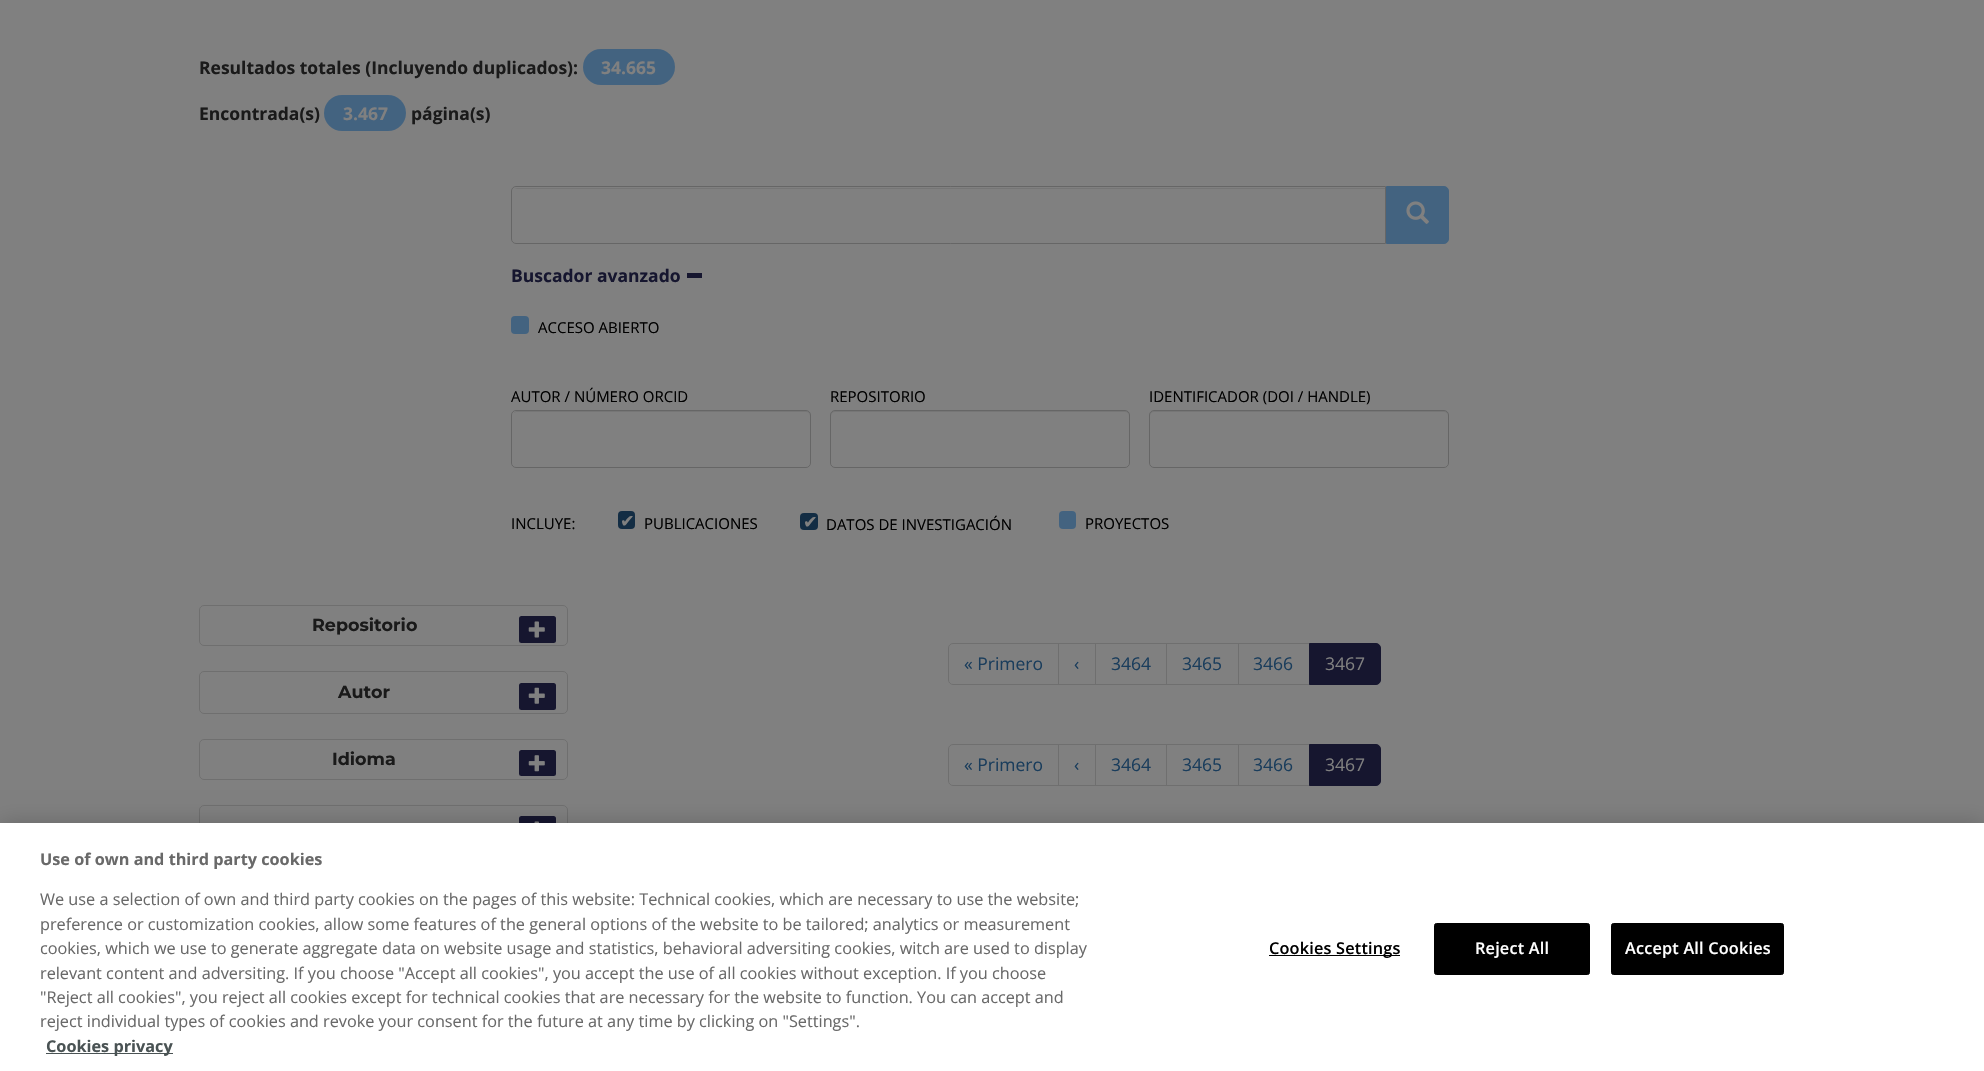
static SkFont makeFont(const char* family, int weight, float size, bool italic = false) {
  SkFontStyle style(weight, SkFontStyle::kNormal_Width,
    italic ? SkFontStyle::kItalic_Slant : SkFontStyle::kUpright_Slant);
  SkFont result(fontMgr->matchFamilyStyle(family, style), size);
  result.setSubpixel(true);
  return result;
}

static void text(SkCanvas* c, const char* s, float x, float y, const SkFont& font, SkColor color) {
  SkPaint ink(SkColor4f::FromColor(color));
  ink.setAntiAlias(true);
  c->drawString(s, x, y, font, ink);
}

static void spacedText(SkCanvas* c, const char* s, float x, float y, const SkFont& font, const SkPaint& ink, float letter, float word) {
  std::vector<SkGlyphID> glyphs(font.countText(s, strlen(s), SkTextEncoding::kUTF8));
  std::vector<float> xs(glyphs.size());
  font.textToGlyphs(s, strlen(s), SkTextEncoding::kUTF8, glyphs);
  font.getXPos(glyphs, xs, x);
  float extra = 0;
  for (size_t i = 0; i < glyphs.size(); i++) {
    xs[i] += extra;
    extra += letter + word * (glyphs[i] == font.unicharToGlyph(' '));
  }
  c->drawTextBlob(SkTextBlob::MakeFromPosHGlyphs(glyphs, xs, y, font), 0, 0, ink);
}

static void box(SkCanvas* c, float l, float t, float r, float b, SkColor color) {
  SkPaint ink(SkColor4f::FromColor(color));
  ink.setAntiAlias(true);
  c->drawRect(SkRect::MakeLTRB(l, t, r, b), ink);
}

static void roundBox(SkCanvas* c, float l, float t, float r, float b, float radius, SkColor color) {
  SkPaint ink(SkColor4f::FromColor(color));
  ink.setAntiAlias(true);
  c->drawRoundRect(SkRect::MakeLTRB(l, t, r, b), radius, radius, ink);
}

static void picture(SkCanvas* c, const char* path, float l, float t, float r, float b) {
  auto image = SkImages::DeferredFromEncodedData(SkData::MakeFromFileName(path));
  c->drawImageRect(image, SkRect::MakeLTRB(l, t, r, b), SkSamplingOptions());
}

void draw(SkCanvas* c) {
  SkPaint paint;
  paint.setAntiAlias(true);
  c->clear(0xff808080);
  SkFont face1 = makeFont("Open Sans", 700, 17.5f);
  text(c, "Resultados totales (Incluyendo duplicados):", 199, 74, face1, 0xff1a1a1a);
  roundBox(c, 583, 49, 675, 85, 18, 0xff436380);
  text(c, "34.665", 601, 74, face1, 0xff808080);
  text(c, "Encontrada(s)", 199, 120, face1, 0xff1a1a1a);
  roundBox(c, 324, 95, 406, 131, 18, 0xff436380);
  text(c, "3.467", 343, 120, face1, 0xff808080);
  text(c, "página(s)", 411, 120, face1, 0xff1a1a1a);
  paint.setColor(0xff767676);
  c->drawPath(SkPathBuilder().moveTo(516, 189).lineTo(1385, 189).lineTo(1385, 188).lineTo(517, 188).cubicTo(516, 188, 515, 189, 514, 189).close().detach(), paint);
  paint.setStyle(SkPaint::kStroke_Style);
  paint.setStrokeWidth(1);
  paint.setColor(0xff666666);
  c->drawPath(SkPathBuilder().moveTo(516, 186.5f).lineTo(1385.5f, 186.5f).lineTo(1385.5f, 243.5f).lineTo(516, 243.5f).cubicTo(513.5f, 243.5f, 511.5f, 241.5f, 511.5f, 239).lineTo(511.5f, 191).cubicTo(511.5f, 188.5f, 513.5f, 186.5f, 516, 186.5f).close().detach(), paint);
  paint.setStyle(SkPaint::kFill_Style);
  paint.setColor(0xff436380);
  c->drawPath(SkPathBuilder().moveTo(1386.5f, 186.5f).lineTo(1444, 186.5f).cubicTo(1446.5f, 186.5f, 1448.5f, 188.5f, 1448.5f, 191).lineTo(1448.5f, 239).cubicTo(1448.5f, 241.5f, 1446.5f, 243.5f, 1444, 243.5f).lineTo(1386.5f, 243.5f).close().detach(), paint);
  paint.setStyle(SkPaint::kStroke_Style);
  c->drawPath(SkPathBuilder().moveTo(1386.5f, 186.5f).lineTo(1444, 186.5f).cubicTo(1446.5f, 186.5f, 1448.5f, 188.5f, 1448.5f, 191).lineTo(1448.5f, 239).cubicTo(1448.5f, 241.5f, 1446.5f, 243.5f, 1444, 243.5f).lineTo(1386.5f, 243.5f).close().detach(), paint);
  picture(c, "img_01.png", 1406, 201, 1429, 224);
  text(c, "Buscador avanzado", 511, 282, face1, 0xff16162f);
  box(c, 687, 273, 702, 278, 0xff16162f);
  roundBox(c, 511, 316, 529, 334, 4, 0xff436380);
  SkFont face2 = makeFont("Open Sans", 400, 15);
  text(c, "ACCESO ABIERTO", 538, 333, face2, 0xff000000);
  text(c, "AUTOR / NÚMERO ORCID", 511, 402, face2, 0xff000000);
  paint.setStyle(SkPaint::kFill_Style);
  paint.setColor(0xff767676);
  c->drawPath(SkPathBuilder().moveTo(516, 412).lineTo(806, 412).cubicTo(808, 412, 810, 414, 810, 416).lineTo(810, 415).cubicTo(810, 413, 808, 411, 806, 411).lineTo(517, 411).cubicTo(516, 411, 514, 412, 514, 413).close().detach(), paint);
  paint.setStyle(SkPaint::kStroke_Style);
  paint.setColor(0xff666666);
  c->drawRoundRect(SkRect::MakeLTRB(511.5f, 410.5f, 810.5f, 467.5f), 4.5f, 4.5f, paint);
  text(c, "REPOSITORIO", 830, 402, face2, 0xff000000);
  paint.setStyle(SkPaint::kFill_Style);
  paint.setColor(0xff767676);
  c->drawPath(SkPathBuilder().moveTo(835, 412).lineTo(1125, 412).cubicTo(1127, 412, 1129, 414, 1129, 416).cubicTo(1129, 413, 1128, 411, 1125, 411).lineTo(835, 411).cubicTo(832, 411, 831, 413, 831, 416).cubicTo(831, 414, 833, 412, 835, 412).close().detach(), paint);
  paint.setStyle(SkPaint::kStroke_Style);
  paint.setColor(0xff666666);
  c->drawRoundRect(SkRect::MakeLTRB(830.5f, 410.5f, 1129.5f, 467.5f), 4.5f, 4.5f, paint);
  text(c, "IDENTIFICADOR (DOI / HANDLE)", 1149, 402, face2, 0xff000000);
  paint.setStyle(SkPaint::kFill_Style);
  paint.setColor(0xff767676);
  c->drawPath(SkPathBuilder().moveTo(1154, 412).lineTo(1444, 412).cubicTo(1446, 412, 1448, 414, 1448, 416).cubicTo(1448, 413, 1447, 411, 1444, 411).lineTo(1154, 411).cubicTo(1151, 411, 1150, 413, 1150, 416).cubicTo(1150, 414, 1152, 412, 1154, 412).close().detach(), paint);
  paint.setStyle(SkPaint::kStroke_Style);
  paint.setColor(0xff666666);
  c->drawRoundRect(SkRect::MakeLTRB(1149.5f, 410.5f, 1448.5f, 467.5f), 4.5f, 4.5f, paint);
  text(c, "INCLUYE:", 511, 529, face2, 0xff000000);
  roundBox(c, 618, 511, 635, 529, 4, 0xff132d44);
  SkFont face3 = makeFont("DejaVu Sans", 400, 17.5f);
  text(c, "✔", 620, 527, face3, 0xff808080);
  text(c, "PUBLICACIONES", 644, 529, face2, 0xff000000);
  roundBox(c, 800, 513, 818, 530, 4, 0xff132d44);
  text(c, "✔", 803, 528, face3, 0xff808080);
  text(c, "DATOS DE INVESTIGACIÓN", 826, 530, face2, 0xff000000);
  roundBox(c, 1059, 511, 1076, 529, 4, 0xff436380);
  text(c, "PROYECTOS", 1085, 529, face2, 0xff000000);
  paint.setColor(0xff6f6f6f);
  c->drawRoundRect(SkRect::MakeLTRB(199.5f, 605.5f, 567.5f, 645.5f), 4.5f, 4.5f, paint);
  SkFont face4 = makeFont("Montserrat", 700, 17.5f);
  text(c, "Repositorio", 312, 631, face4, 0xff1a1a1a);
  roundBox(c, 519, 616, 556, 643, 2.5f, 0xff16162f);
  picture(c, "img_02.png", 528, 621, 545, 638);
  c->drawRoundRect(SkRect::MakeLTRB(199.5f, 671.5f, 567.5f, 713.5f), 4.5f, 4.5f, paint);
  text(c, "Autor", 338, 698, face4, 0xff1a1a1a);
  roundBox(c, 519, 683, 556, 710, 2.5f, 0xff16162f);
  picture(c, "img_03.png", 528, 687, 545, 704);
  c->drawRoundRect(SkRect::MakeLTRB(199.5f, 739.5f, 567.5f, 779.5f), 4.5f, 4.5f, paint);
  text(c, "Idioma", 332, 765, face4, 0xff1a1a1a);
  roundBox(c, 519, 750, 556, 776, 2.5f, 0xff16162f);
  picture(c, "img_04.png", 528, 755, 545, 772);
  c->drawRoundRect(SkRect::MakeLTRB(199.5f, 805.5f, 567.5f, 847.5f), 4.5f, 4.5f, paint);
  roundBox(c, 519, 816, 556, 844, 2.5f, 0xff16162f);
  picture(c, "img_05.png", 534, 821, 539, 823);
  c->drawPath(SkPathBuilder().moveTo(953, 643.5f).lineTo(1058.5f, 643.5f).lineTo(1058.5f, 684.5f).lineTo(953, 684.5f).cubicTo(950.5f, 684.5f, 948.5f, 682.5f, 948.5f, 680).lineTo(948.5f, 648).cubicTo(948.5f, 645.5f, 950.5f, 643.5f, 953, 643.5f).close().detach(), paint);
  SkFont face5 = makeFont("Open Sans", 400, 17.5f);
  text(c, "« Primero", 964, 670, face5, 0xff1a3d5c);
  c->drawRect(SkRect::MakeLTRB(1058.5f, 643.5f, 1095.5f, 684.5f), paint);
  text(c, "‹", 1074, 670, face5, 0xff1a3d5c);
  c->drawRect(SkRect::MakeLTRB(1095.5f, 643.5f, 1167.5f, 684.5f), paint);
  text(c, "3464", 1111, 670, face5, 0xff1a3d5c);
  box(c, 1167, 644, 1168, 684, 0xff808080);
  c->drawRect(SkRect::MakeLTRB(1166.5f, 643.5f, 1238.5f, 684.5f), paint);
  text(c, "3465", 1182, 670, face5, 0xff1a3d5c);
  c->drawRect(SkRect::MakeLTRB(1238.5f, 643.5f, 1309.5f, 684.5f), paint);
  text(c, "3466", 1253, 670, face5, 0xff1a3d5c);
  paint.setStyle(SkPaint::kFill_Style);
  paint.setColor(0xff16162f);
  c->drawPath(SkPathBuilder().moveTo(1309.5f, 643.5f).lineTo(1376, 643.5f).cubicTo(1378.5f, 643.5f, 1380.5f, 645.5f, 1380.5f, 648).lineTo(1380.5f, 680).cubicTo(1380.5f, 682.5f, 1378.5f, 684.5f, 1376, 684.5f).lineTo(1309.5f, 684.5f).close().detach(), paint);
  paint.setStyle(SkPaint::kStroke_Style);
  c->drawPath(SkPathBuilder().moveTo(1309.5f, 643.5f).lineTo(1376, 643.5f).cubicTo(1378.5f, 643.5f, 1380.5f, 645.5f, 1380.5f, 648).lineTo(1380.5f, 680).cubicTo(1380.5f, 682.5f, 1378.5f, 684.5f, 1376, 684.5f).lineTo(1309.5f, 684.5f).close().detach(), paint);
  text(c, "3467", 1325, 670, face5, 0xff808080);
  paint.setColor(0xff6f6f6f);
  c->drawPath(SkPathBuilder().moveTo(953, 744.5f).lineTo(1058.5f, 744.5f).lineTo(1058.5f, 785.5f).lineTo(953, 785.5f).cubicTo(950.5f, 785.5f, 948.5f, 783.5f, 948.5f, 781).lineTo(948.5f, 749).cubicTo(948.5f, 746.5f, 950.5f, 744.5f, 953, 744.5f).close().detach(), paint);
  text(c, "« Primero", 964, 771, face5, 0xff1a3d5c);
  c->drawRect(SkRect::MakeLTRB(1058.5f, 744.5f, 1095.5f, 785.5f), paint);
  text(c, "‹", 1074, 771, face5, 0xff1a3d5c);
  c->drawRect(SkRect::MakeLTRB(1095.5f, 744.5f, 1167.5f, 785.5f), paint);
  text(c, "3464", 1111, 771, face5, 0xff1a3d5c);
  box(c, 1167, 745, 1168, 785, 0xff808080);
  c->drawRect(SkRect::MakeLTRB(1166.5f, 744.5f, 1238.5f, 785.5f), paint);
  text(c, "3465", 1182, 771, face5, 0xff1a3d5c);
  c->drawRect(SkRect::MakeLTRB(1238.5f, 744.5f, 1309.5f, 785.5f), paint);
  text(c, "3466", 1253, 771, face5, 0xff1a3d5c);
  paint.setStyle(SkPaint::kFill_Style);
  paint.setColor(0xff16162f);
  c->drawPath(SkPathBuilder().moveTo(1309.5f, 744.5f).lineTo(1376, 744.5f).cubicTo(1378.5f, 744.5f, 1380.5f, 746.5f, 1380.5f, 749).lineTo(1380.5f, 781).cubicTo(1380.5f, 783.5f, 1378.5f, 785.5f, 1376, 785.5f).lineTo(1309.5f, 785.5f).close().detach(), paint);
  paint.setStyle(SkPaint::kStroke_Style);
  c->drawPath(SkPathBuilder().moveTo(1309.5f, 744.5f).lineTo(1376, 744.5f).cubicTo(1378.5f, 744.5f, 1380.5f, 746.5f, 1380.5f, 749).lineTo(1380.5f, 781).cubicTo(1380.5f, 783.5f, 1378.5f, 785.5f, 1376, 785.5f).lineTo(1309.5f, 785.5f).close().detach(), paint);
  text(c, "3467", 1325, 771, face5, 0xff808080);
  paint.setStyle(SkPaint::kFill_Style);
  paint.setColor(0x33000000);
  paint.setMaskFilter(SkMaskFilter::MakeBlur(kNormal_SkBlurStyle, 11));
  c->drawRect(SkRect::MakeLTRB(0, 823, 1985, 1071), paint);
  paint.setMaskFilter(nullptr);
  box(c, 0, 823, 1984, 1071, 0xffffffff);
  SkFont face6 = makeFont("Open Sans", 700, 16.25f);
  text(c, "Use of own and third party cookies", 40, 865, face6, 0xff696969);
  SkFont face7 = makeFont("Open Sans", 400, 16.25f);
  text(c, "We use a selection of own and third party cookies on the pages of this website: Technical cookies, which are necessary to use the website;", 40, 905, face7, 0xff696969);
  text(c, "preference or customization cookies, allow some features of the general options of the website to be tailored; analytics or measurement", 40, 930, face7, 0xff696969);
  text(c, "cookies, which we use to generate aggregate data on website usage and statistics, behavioral adversiting cookies, witch are used to display", 40, 954, face7, 0xff696969);
  text(c, "relevant content and adversiting. If you choose \"Accept all cookies\", you accept the use of all cookies without exception. If you choose", 40, 979, face7, 0xff696969);
  text(c, "\"Reject all cookies\", you reject all cookies except for technical cookies that are necessary for the website to function. You can accept and", 40, 1003, face7, 0xff696969);
  text(c, "reject individual types of cookies and revoke your consent for the future at any time by clicking on \"Settings\".", 40, 1027, face7, 0xff696969);
  box(c, 46, 1053, 173, 1054, 0xff4a5354);
  text(c, "Cookies privacy", 46, 1052, face6, 0xff4a5354);
  box(c, 1269, 955, 1400, 956, 0xff000000);
  SkFont face8 = makeFont("Open Sans", 600, 16.25f);
  paint.setColor(0xff000000);
  spacedText(c, "Cookies Settings", 1269, 954, face8, paint, 0.2f, 0);
  c->drawRoundRect(SkRect::MakeLTRB(1434.5f, 923.5f, 1589.5f, 974.5f), 2, 2, paint);
  paint.setStyle(SkPaint::kStroke_Style);
  c->drawRoundRect(SkRect::MakeLTRB(1434.5f, 923.5f, 1589.5f, 974.5f), 2, 2, paint);
  paint.setStyle(SkPaint::kFill_Style);
  paint.setColor(0xffffffff);
  spacedText(c, "Reject All", 1475, 954, face8, paint, 0.2f, 0);
  paint.setColor(0xff000000);
  c->drawRoundRect(SkRect::MakeLTRB(1611.5f, 923.5f, 1783.5f, 974.5f), 2, 2, paint);
  paint.setStyle(SkPaint::kStroke_Style);
  c->drawRoundRect(SkRect::MakeLTRB(1611.5f, 923.5f, 1783.5f, 974.5f), 2, 2, paint);
  paint.setStyle(SkPaint::kFill_Style);
  paint.setColor(0xffffffff);
  spacedText(c, "Accept All Cookies", 1625, 954, face8, paint, 0.2f, 0);
}
